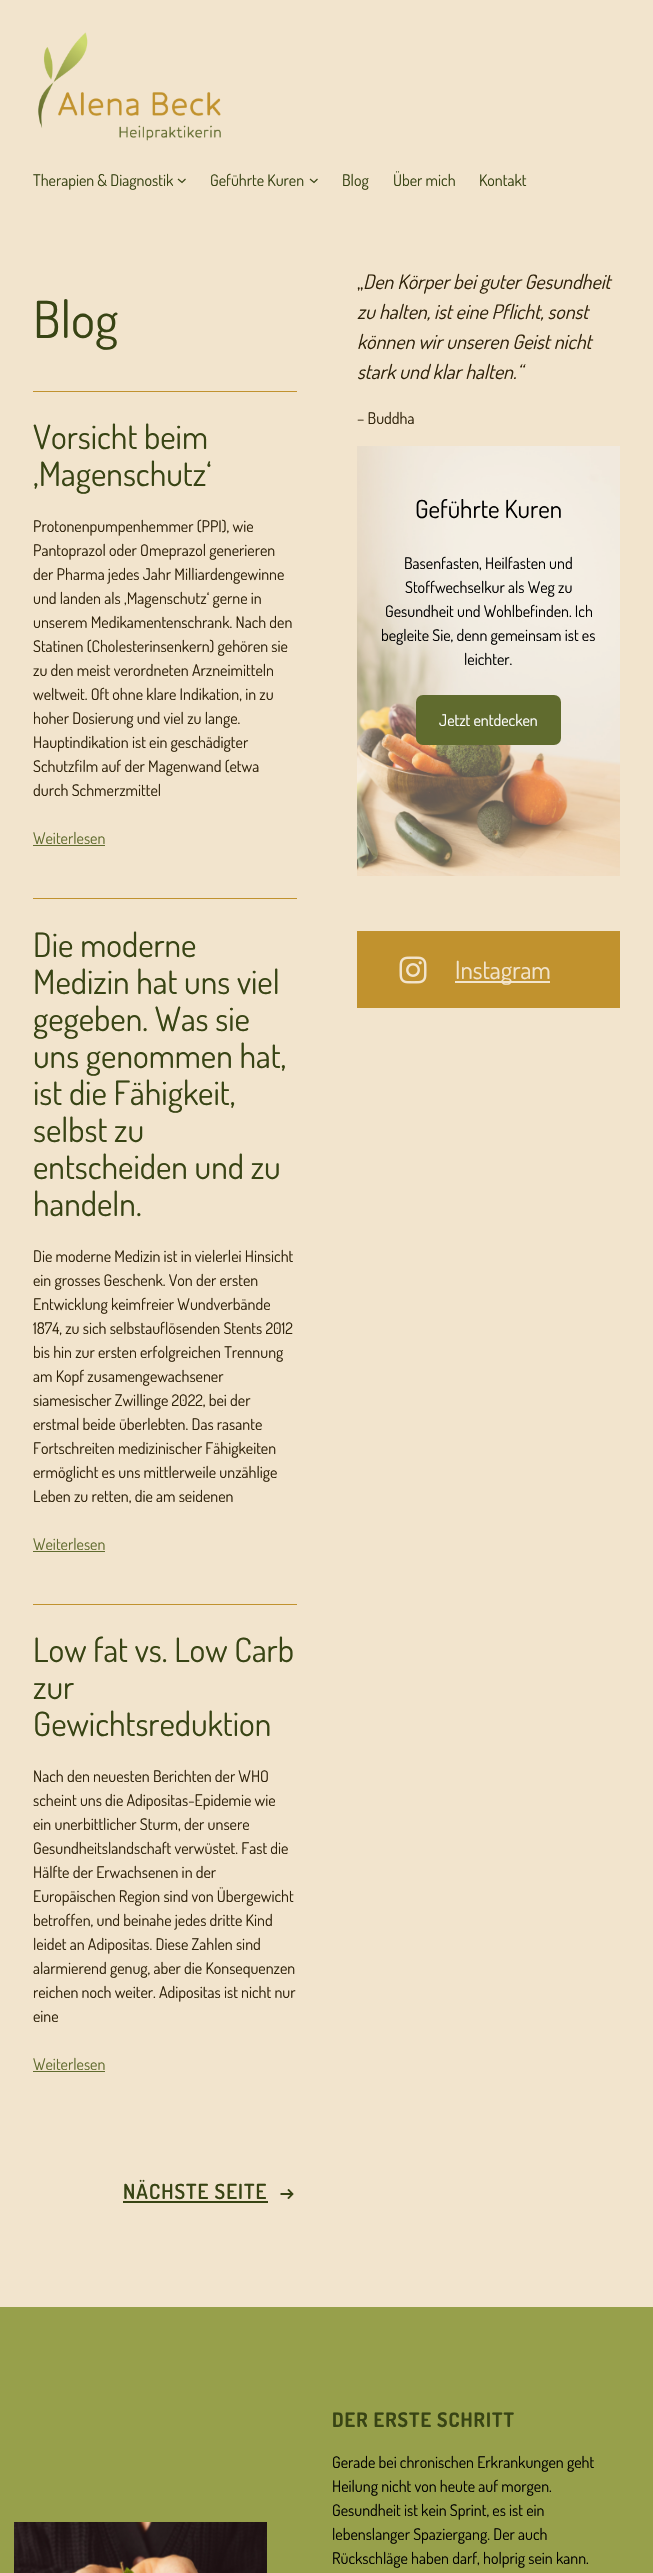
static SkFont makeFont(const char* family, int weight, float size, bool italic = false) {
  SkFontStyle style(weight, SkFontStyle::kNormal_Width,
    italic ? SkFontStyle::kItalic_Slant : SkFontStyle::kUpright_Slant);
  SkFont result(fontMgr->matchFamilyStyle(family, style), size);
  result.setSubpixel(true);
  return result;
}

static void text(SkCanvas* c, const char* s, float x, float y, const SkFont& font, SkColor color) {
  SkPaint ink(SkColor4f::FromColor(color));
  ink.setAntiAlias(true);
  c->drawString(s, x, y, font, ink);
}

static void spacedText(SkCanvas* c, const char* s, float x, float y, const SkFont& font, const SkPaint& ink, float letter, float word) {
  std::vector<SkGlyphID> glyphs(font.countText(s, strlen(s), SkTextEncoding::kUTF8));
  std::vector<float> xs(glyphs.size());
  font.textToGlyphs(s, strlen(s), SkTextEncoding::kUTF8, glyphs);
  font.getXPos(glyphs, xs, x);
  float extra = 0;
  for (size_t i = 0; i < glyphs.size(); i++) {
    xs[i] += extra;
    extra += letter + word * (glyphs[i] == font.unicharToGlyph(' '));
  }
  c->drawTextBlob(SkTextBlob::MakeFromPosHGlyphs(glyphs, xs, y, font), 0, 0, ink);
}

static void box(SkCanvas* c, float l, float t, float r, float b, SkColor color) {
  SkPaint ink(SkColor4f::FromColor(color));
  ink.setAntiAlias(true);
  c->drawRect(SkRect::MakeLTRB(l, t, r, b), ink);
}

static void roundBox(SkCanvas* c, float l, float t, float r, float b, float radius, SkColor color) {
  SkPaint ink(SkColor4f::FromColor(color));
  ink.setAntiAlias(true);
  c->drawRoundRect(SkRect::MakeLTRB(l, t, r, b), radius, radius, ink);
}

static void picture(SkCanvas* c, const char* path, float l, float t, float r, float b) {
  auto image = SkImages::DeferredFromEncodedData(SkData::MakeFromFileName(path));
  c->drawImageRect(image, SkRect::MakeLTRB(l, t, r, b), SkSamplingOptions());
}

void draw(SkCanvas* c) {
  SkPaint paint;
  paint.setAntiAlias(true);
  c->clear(0xfff2e4cd);
  picture(c, "img_01.png", 38, 32, 221, 141);
  SkFont face1 = makeFont("Dosis", 400, 16);
  text(c, "Therapien & Diagnostik", 33, 186, face1, 0xff384414);
  paint.setStyle(SkPaint::kStroke_Style);
  paint.setStrokeWidth(1.2f);
  paint.setColor(0xff384414);
  c->drawPath(SkPathBuilder().moveTo(178, 179).lineTo(182, 182.5f).lineTo(185.5f, 179).detach(), paint);
  text(c, "Geführte Kuren", 210, 186, face1, 0xff384414);
  c->drawPath(SkPathBuilder().moveTo(310, 179).lineTo(314, 182.5f).lineTo(317.5f, 179).detach(), paint);
  text(c, "Blog", 342, 186, face1, 0xff384414);
  text(c, "Über mich", 393, 186, face1, 0xff384414);
  text(c, "Kontakt", 479, 186, face1, 0xff384414);
  SkFont face2 = makeFont("Dosis", 400, 51);
  text(c, "Blog", 33, 338, face2, 0xff384414);
  box(c, 33, 391, 297, 392, 0xffc1922e);
  SkFont face3 = makeFont("Dosis", 400, 33.5f);
  text(c, "Vorsicht beim", 33, 449, face3, 0xff384414);
  text(c, "‚Magenschutz‘", 33, 486, face3, 0xff384414);
  text(c, "Protonenpumpenhemmer (PPI), wie", 33, 532, face1, 0xff2f220a);
  text(c, "Pantoprazol oder Omeprazol generieren", 33, 556, face1, 0xff2f220a);
  text(c, "der Pharma jedes Jahr Milliardengewinne", 33, 580, face1, 0xff2f220a);
  text(c, "und landen als ‚Magenschutz‘ gerne in", 33, 604, face1, 0xff2f220a);
  text(c, "unserem Medikamentenschrank. Nach den", 33, 628, face1, 0xff2f220a);
  text(c, "Statinen (Cholesterinsenkern) gehören sie", 33, 652, face1, 0xff2f220a);
  text(c, "zu den meist verordneten Arzneimitteln", 33, 676, face1, 0xff2f220a);
  text(c, "weltweit. Oft ohne klare Indikation, in zu", 33, 700, face1, 0xff2f220a);
  text(c, "hoher Dosierung und viel zu lange.", 33, 724, face1, 0xff2f220a);
  text(c, "Hauptindikation ist ein geschädigter", 33, 748, face1, 0xff2f220a);
  text(c, "Schutzfilm auf der Magenwand (etwa", 33, 772, face1, 0xff2f220a);
  text(c, "durch Schmerzmittel", 33, 796, face1, 0xff2f220a);
  text(c, "Weiterlesen", 33, 844, face1, 0xff606b2e);
  box(c, 33, 845, 105, 846, 0xff606b2e);
  box(c, 33, 898, 297, 899, 0xffc1922e);
  text(c, "Die moderne", 33, 957, face3, 0xff384414);
  text(c, "Medizin hat uns viel", 33, 994, face3, 0xff384414);
  text(c, "gegeben. Was sie", 33, 1031, face3, 0xff384414);
  text(c, "uns genommen hat,", 33, 1068, face3, 0xff384414);
  text(c, "ist die Fähigkeit,", 33, 1105, face3, 0xff384414);
  text(c, "selbst zu", 33, 1142, face3, 0xff384414);
  text(c, "entscheiden und zu", 33, 1179, face3, 0xff384414);
  text(c, "handeln.", 33, 1216, face3, 0xff384414);
  text(c, "Die moderne Medizin ist in vielerlei Hinsicht", 33, 1262, face1, 0xff2f220a);
  text(c, "ein grosses Geschenk. Von der ersten", 33, 1286, face1, 0xff2f220a);
  text(c, "Entwicklung keimfreier Wundverbände", 33, 1310, face1, 0xff2f220a);
  text(c, "1874, zu sich selbstauflösenden Stents 2012", 33, 1334, face1, 0xff2f220a);
  text(c, "bis hin zur ersten erfolgreichen Trennung", 33, 1358, face1, 0xff2f220a);
  text(c, "am Kopf zusamengewachsener", 33, 1382, face1, 0xff2f220a);
  text(c, "siamesischer Zwillinge 2022, bei der", 33, 1406, face1, 0xff2f220a);
  text(c, "erstmal beide überlebten. Das rasante", 33, 1430, face1, 0xff2f220a);
  text(c, "Fortschreiten medizinischer Fähigkeiten", 33, 1454, face1, 0xff2f220a);
  text(c, "ermöglicht es uns mittlerweile unzählige", 33, 1478, face1, 0xff2f220a);
  text(c, "Leben zu retten, die am seidenen", 33, 1502, face1, 0xff2f220a);
  text(c, "Weiterlesen", 33, 1550, face1, 0xff606b2e);
  box(c, 33, 1551, 105, 1552, 0xff606b2e);
  box(c, 33, 1604, 297, 1605, 0xffc1922e);
  text(c, "Low fat vs. Low Carb", 33, 1662, face3, 0xff384414);
  text(c, "zur", 33, 1699, face3, 0xff384414);
  text(c, "Gewichtsreduktion", 33, 1736, face3, 0xff384414);
  text(c, "Nach den neuesten Berichten der WHO", 33, 1782, face1, 0xff2f220a);
  text(c, "scheint uns die Adipositas-Epidemie wie", 33, 1806, face1, 0xff2f220a);
  text(c, "ein unerbittlicher Sturm, der unsere", 33, 1830, face1, 0xff2f220a);
  text(c, "Gesundheitslandschaft verwüstet. Fast die", 33, 1854, face1, 0xff2f220a);
  text(c, "Hälfte der Erwachsenen in der", 33, 1878, face1, 0xff2f220a);
  text(c, "Europäischen Region sind von Übergewicht", 33, 1902, face1, 0xff2f220a);
  text(c, "betroffen, und beinahe jedes dritte Kind", 33, 1926, face1, 0xff2f220a);
  text(c, "leidet an Adipositas. Diese Zahlen sind", 33, 1950, face1, 0xff2f220a);
  text(c, "alarmierend genug, aber die Konsequenzen", 33, 1974, face1, 0xff2f220a);
  text(c, "reichen noch weiter. Adipositas ist nicht nur", 33, 1998, face1, 0xff2f220a);
  text(c, "eine", 33, 2022, face1, 0xff2f220a);
  text(c, "Weiterlesen", 33, 2070, face1, 0xff606b2e);
  box(c, 33, 2071, 105, 2072, 0xff606b2e);
  SkFont face4 = makeFont("Dosis", 600, 20.75f);
  paint.setStyle(SkPaint::kFill_Style);
  spacedText(c, "NÄCHSTE SEITE", 123, 2199, face4, paint, 1, 0);
  box(c, 123, 2201, 268, 2203, 0xff384414);
  spacedText(c, "→", 279, 2199, face4, paint, 1, 0);
  SkFont face5 = makeFont("Dosis", 400, 20);
  text(c, "„", 357, 289, face5, 0xff2f220a);
  SkFont face6 = makeFont("Dosis", 400, 20, true);
  text(c, "Den Körper bei guter Gesundheit", 363, 289, face6, 0xff2f220a);
  text(c, "zu halten, ist eine Pflicht, sonst", 357, 319, face6, 0xff2f220a);
  text(c, "können wir unseren Geist nicht", 357, 349, face6, 0xff2f220a);
  text(c, "stark und klar halten.“", 357, 379, face6, 0xff2f220a);
  text(c, "– Buddha", 357, 424, face1, 0xff2f220a);
  picture(c, "img_02.png", 357, 446, 620, 876);
  SkFont face7 = makeFont("Dosis", 400, 25);
  text(c, "Geführte Kuren", 415, 518, face7, 0xff000000);
  text(c, "Basenfasten, Heilfasten und", 404, 569, face1, 0xff000000);
  text(c, "Stoffwechselkur als Weg zu", 405, 593, face1, 0xff000000);
  text(c, "Gesundheit und Wohlbefinden. Ich", 385, 617, face1, 0xff000000);
  text(c, "begleite Sie, denn gemeinsam ist es", 381, 641, face1, 0xff000000);
  text(c, "leichter.", 464, 665, face1, 0xff000000);
  roundBox(c, 416, 695, 561, 745, 7, 0xff606b2e);
  text(c, "Jetzt entdecken", 439, 726, face1, 0xffffffff);
  box(c, 357, 931, 620, 1008, 0xffc1922e);
  picture(c, "img_03.png", 399, 956, 427, 984);
  box(c, 455, 981, 550, 983, 0xfff2e4cd);
  text(c, "Instagram", 455, 979, face7, 0xfff2e4cd);
  box(c, 0, 2307, 653, 2573, 0xff97a04b);
  picture(c, "img_04.png", 14, 2522, 267, 2573);
  SkFont face8 = makeFont("Dosis", 700, 20);
  spacedText(c, "DER ERSTE SCHRITT", 332, 2427, face8, paint, 1, 0);
  text(c, "Gerade bei chronischen Erkrankungen geht", 332, 2468, face1, 0xff000000);
  text(c, "Heilung nicht von heute auf morgen.", 332, 2492, face1, 0xff000000);
  text(c, "Gesundheit ist kein Sprint, es ist ein", 332, 2516, face1, 0xff000000);
  text(c, "lebenslanger Spaziergang. Der auch", 332, 2540, face1, 0xff000000);
  text(c, "Rückschläge haben darf, holprig sein kann.", 332, 2564, face1, 0xff000000);
}
